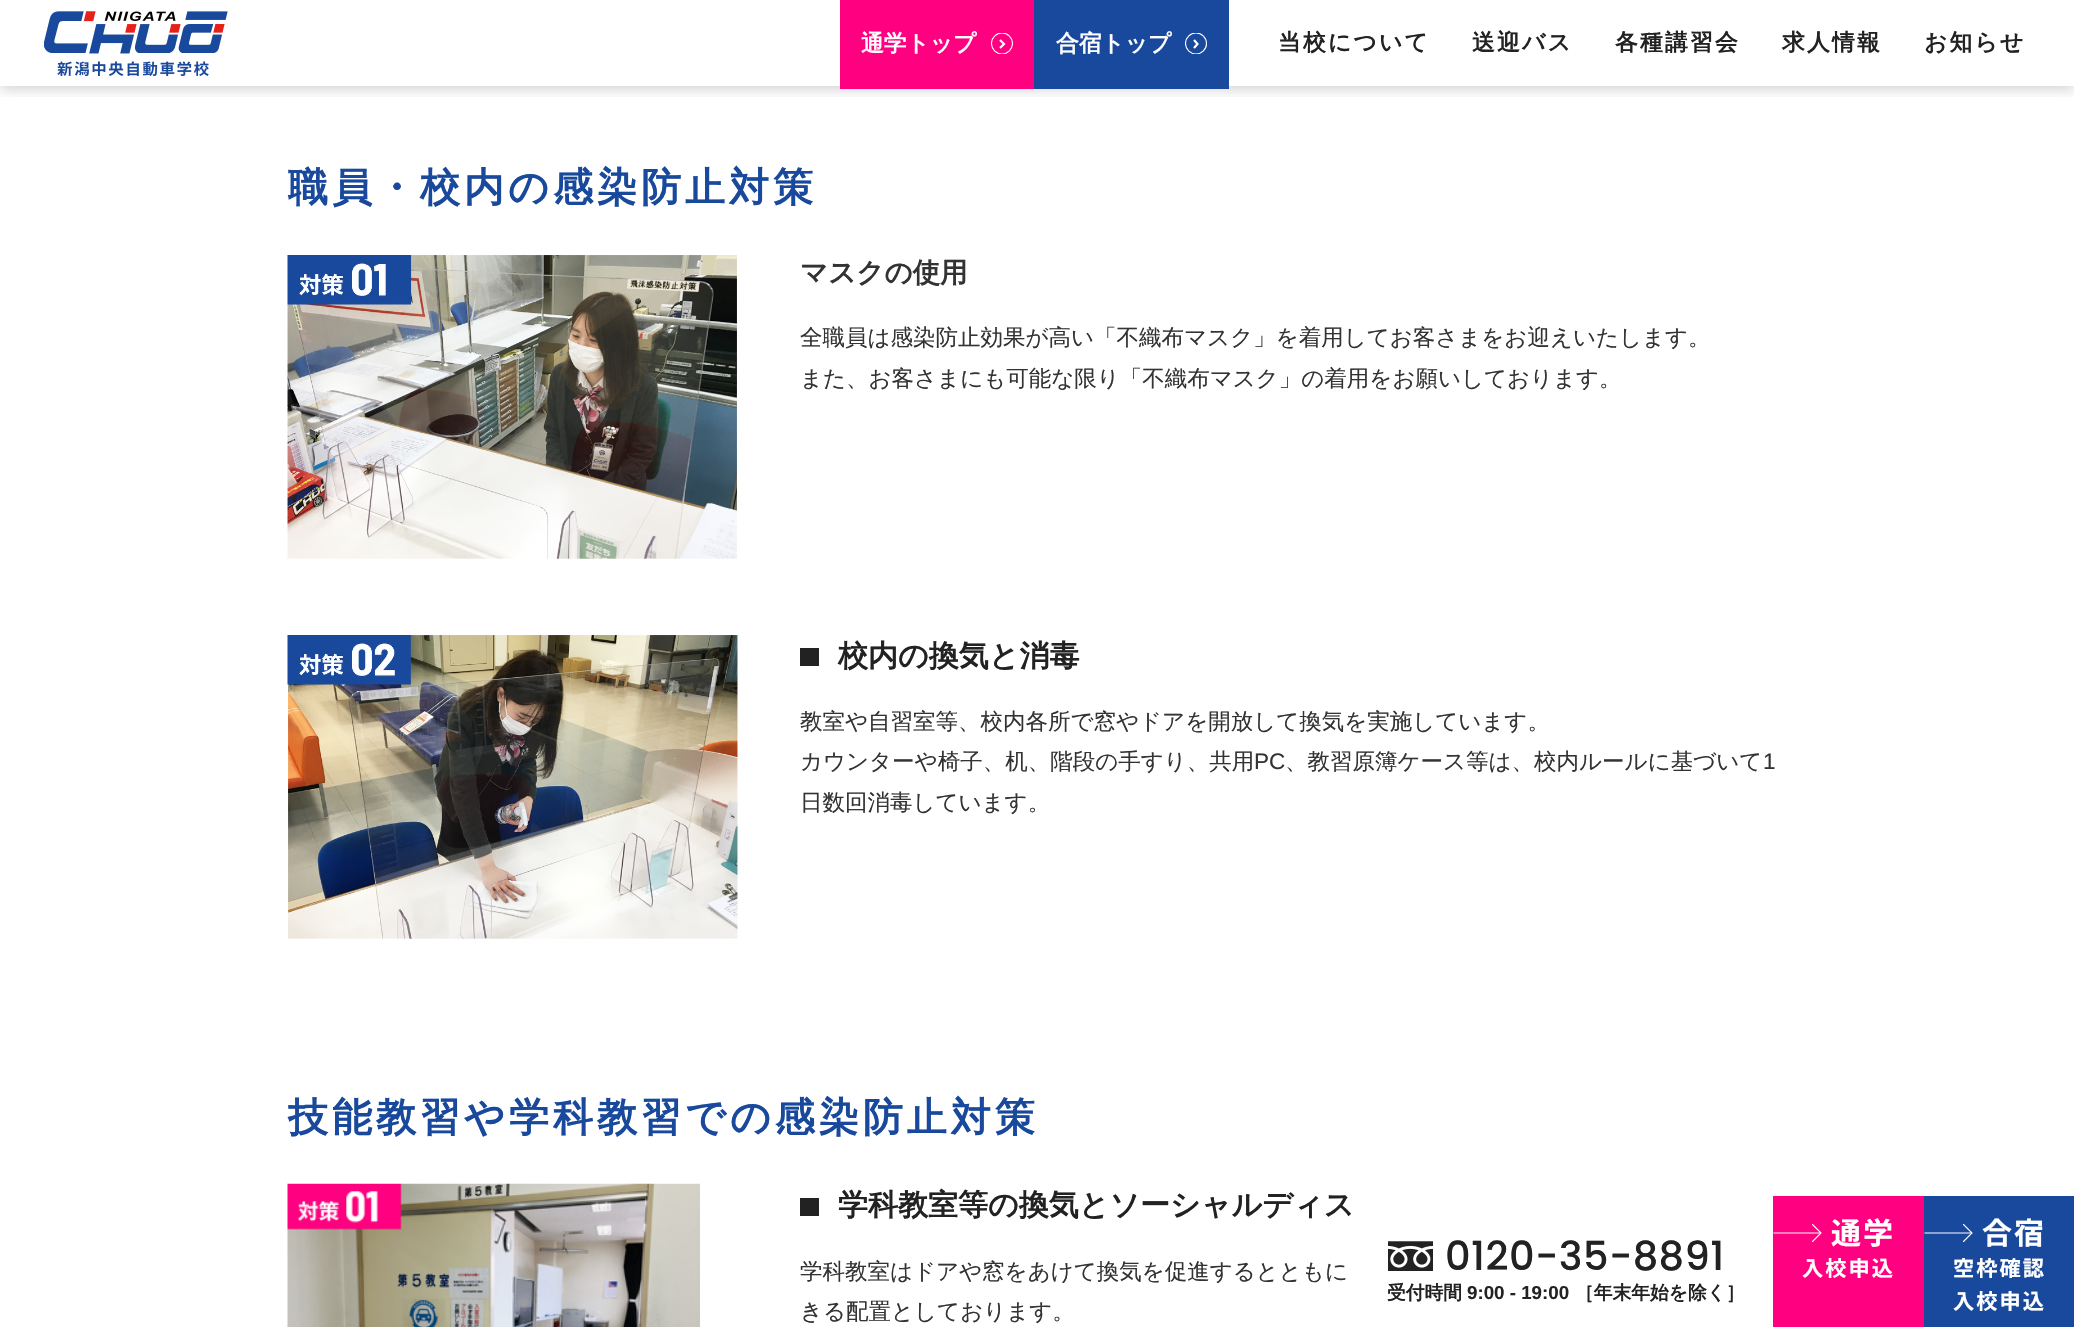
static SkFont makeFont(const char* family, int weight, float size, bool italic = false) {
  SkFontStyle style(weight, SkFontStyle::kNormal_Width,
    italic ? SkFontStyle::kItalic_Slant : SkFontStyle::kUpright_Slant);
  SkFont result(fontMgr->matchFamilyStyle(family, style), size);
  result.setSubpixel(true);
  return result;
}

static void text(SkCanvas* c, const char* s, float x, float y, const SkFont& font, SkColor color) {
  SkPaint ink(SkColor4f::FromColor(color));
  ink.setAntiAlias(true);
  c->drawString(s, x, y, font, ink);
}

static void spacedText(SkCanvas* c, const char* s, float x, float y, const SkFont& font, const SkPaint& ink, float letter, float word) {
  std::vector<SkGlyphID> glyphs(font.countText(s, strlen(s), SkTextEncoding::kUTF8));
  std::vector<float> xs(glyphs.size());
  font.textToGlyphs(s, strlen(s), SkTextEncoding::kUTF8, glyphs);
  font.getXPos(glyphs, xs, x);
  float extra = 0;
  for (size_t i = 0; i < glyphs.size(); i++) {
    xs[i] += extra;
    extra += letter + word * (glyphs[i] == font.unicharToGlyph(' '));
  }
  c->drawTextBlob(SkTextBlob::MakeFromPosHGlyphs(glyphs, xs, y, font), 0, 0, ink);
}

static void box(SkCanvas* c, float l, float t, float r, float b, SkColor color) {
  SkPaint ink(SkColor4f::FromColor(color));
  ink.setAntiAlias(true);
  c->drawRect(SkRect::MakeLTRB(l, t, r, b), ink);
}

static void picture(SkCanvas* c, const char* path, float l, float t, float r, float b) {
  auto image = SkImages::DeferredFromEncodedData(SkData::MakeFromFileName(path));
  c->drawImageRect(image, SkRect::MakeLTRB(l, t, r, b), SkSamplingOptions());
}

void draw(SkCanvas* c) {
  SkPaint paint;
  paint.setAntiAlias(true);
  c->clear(0xffffffff);
  c->save();
  c->clipRect(SkRect::MakeLTRB(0, 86, 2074, 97));
  paint.setColor(0x29000000);
  paint.setMaskFilter(SkMaskFilter::MakeBlur(kNormal_SkBlurStyle, 6));
  c->drawRect(SkRect::MakeLTRB(0, 4, 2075, 90), paint);
  paint.setMaskFilter(nullptr);
  c->restore();
  picture(c, "img_01.png", 44, 11, 228, 76);
  box(c, 840, 0, 1034, 89, 0xffff0080);
  SkFont face1 = makeFont("WenQuanYi Zen Hei", 700, 22.75f);
  text(c, "通学トップ", 861, 51, face1, 0xffffffff);
  c->save();
  c->clipRect(SkRect::MakeLTRB(991, 33, 1013, 54));
  paint.setStyle(SkPaint::kStroke_Style);
  paint.setStrokeWidth(1.1f);
  paint.setColor(0xffffffff);
  c->drawCircle(1002, 43.5f, 10.5f, paint);
  c->restore();
  paint.setStrokeWidth(2.2f);
  c->drawPath(SkPathBuilder().moveTo(1000, 40).lineTo(1004, 44).lineTo(1000, 48).detach(), paint);
  box(c, 1034, 0, 1229, 89, 0xff19499c);
  text(c, "合宿トップ", 1056, 51, face1, 0xffffffff);
  c->save();
  c->clipRect(SkRect::MakeLTRB(1185, 33, 1208, 54));
  paint.setStrokeWidth(1.1f);
  c->drawCircle(1196, 43.5f, 10.5f, paint);
  c->restore();
  paint.setStrokeWidth(2.2f);
  c->drawPath(SkPathBuilder().moveTo(1194, 40).lineTo(1197.5f, 44).lineTo(1194, 48).detach(), paint);
  paint.setStyle(SkPaint::kFill_Style);
  paint.setColor(0xff222222);
  spacedText(c, "当校について", 1278, 50, face1, paint, 2.25f, 0);
  spacedText(c, "送迎バス", 1472, 50, face1, paint, 2.25f, 0);
  spacedText(c, "各種講習会", 1615, 50, face1, paint, 2.25f, 0);
  spacedText(c, "求人情報", 1782, 50, face1, paint, 2.25f, 0);
  spacedText(c, "お知らせ", 1924, 50, face1, paint, 2.25f, 0);
  SkFont face2 = makeFont("WenQuanYi Zen Hei", 700, 40);
  paint.setColor(0xff19499c);
  spacedText(c, "職員・校内の感染防止対策", 288, 201, face2, paint, 4, 0);
  picture(c, "img_02.png", 287, 255, 737, 559);
  SkFont face3 = makeFont("WenQuanYi Zen Hei", 700, 27.5f);
  text(c, "マスクの使用", 800, 282, face3, 0xff333333);
  SkFont face4 = makeFont("WenQuanYi Zen Hei", 500, 22.5f);
  text(c, "全職員は感染防止効果が高い「不織布マスク」を着用してお客さまをお迎えいたします。", 800, 345, face4, 0xff333333);
  text(c, "また、お客さまにも可能な限り「不織布マスク」の着用をお願いしております。", 800, 386, face4, 0xff333333);
  picture(c, "img_03.png", 287, 635, 738, 939);
  box(c, 800, 648, 819, 666, 0xff222222);
  SkFont face5 = makeFont("WenQuanYi Zen Hei", 700, 30);
  text(c, "校内の換気と消毒", 838, 666, face5, 0xff222222);
  text(c, "教室や自習室等、校内各所で窓やドアを開放して換気を実施しています。", 800, 729, face4, 0xff333333);
  text(c, "カウンターや椅子、机、階段の手すり、共用", 800, 769, face4, 0xff333333);
  SkFont face6 = makeFont("Liberation Sans", 400, 22.5f);
  text(c, "PC", 1254, 769, face6, 0xff333333);
  text(c, "、教習原簿ケース等は、校内ルールに基づいて", 1285, 769, face4, 0xff333333);
  text(c, "1", 1763, 769, face6, 0xff333333);
  text(c, "日数回消毒しています。", 800, 810, face4, 0xff333333);
  spacedText(c, "技能教習や学科教習での感染防止対策", 288, 1131, face2, paint, 4, 0);
  picture(c, "img_04.png", 287, 1183, 700, 1327);
  box(c, 800, 1198, 819, 1216, 0xff222222);
  text(c, "学科教室等の換気とソーシャルディス", 838, 1215, face5, 0xff222222);
  text(c, "学科教室はドアや窓をあけて換気を促進するとともに", 800, 1279, face4, 0xff333333);
  text(c, "きる配置としております。", 800, 1319, face4, 0xff333333);
  picture(c, "img_05.png", 1388, 1241, 1433, 1271);
  SkFont face7 = makeFont("Poppins", 500, 40);
  paint.setColor(0xff222222);
  spacedText(c, "0120-35-8891", 1445, 1270, face7, paint, 0.4f, 0);
  SkFont face8 = makeFont("WenQuanYi Zen Hei", 700, 18.75f);
  text(c, "受付時間", 1387, 1299, face8, 0xff222222);
  SkFont face9 = makeFont("Liberation Sans", 700, 18.75f);
  text(c, "9:00 - 19:00", 1467, 1299, face9, 0xff222222);
  text(c, "［年末年始を除く］", 1575, 1299, face8, 0xff222222);
  box(c, 1773, 1196, 1924, 1327, 0xffff0080);
  paint.setStyle(SkPaint::kStroke_Style);
  paint.setStrokeWidth(1.1f);
  paint.setColor(0xffffffff);
  c->drawPath(SkPathBuilder().moveTo(1773.5f, 1233).lineTo(1821, 1233).detach(), paint);
  paint.setStrokeCap(SkPaint::kRound_Cap);
  c->drawPath(SkPathBuilder().moveTo(1812.5f, 1224.5f).lineTo(1821, 1233).lineTo(1812.5f, 1241.5f).detach(), paint);
  SkFont face10 = makeFont("Noto Sans JP", 100, 30);
  paint.setStyle(SkPaint::kFill_Style);
  spacedText(c, "通学", 1831, 1244, face10, paint, 2, 0);
  SkFont face11 = makeFont("Noto Sans JP", 100, 21.25f);
  spacedText(c, "入校申込", 1802, 1276, face11, paint, 2, 0);
  box(c, 1924, 1196, 2074, 1327, 0xff19499c);
  paint.setStyle(SkPaint::kStroke_Style);
  paint.setStrokeCap(SkPaint::kButt_Cap);
  c->drawPath(SkPathBuilder().moveTo(1924.5f, 1233).lineTo(1972, 1233).detach(), paint);
  paint.setStrokeCap(SkPaint::kRound_Cap);
  c->drawPath(SkPathBuilder().moveTo(1963.5f, 1224.5f).lineTo(1972, 1233).lineTo(1963.5f, 1241.5f).detach(), paint);
  paint.setStyle(SkPaint::kFill_Style);
  spacedText(c, "合宿", 1982, 1244, face10, paint, 2, 0);
  spacedText(c, "空枠確認", 1953, 1276, face11, paint, 2, 0);
  spacedText(c, "入校申込", 1953, 1309, face11, paint, 2, 0);
}
